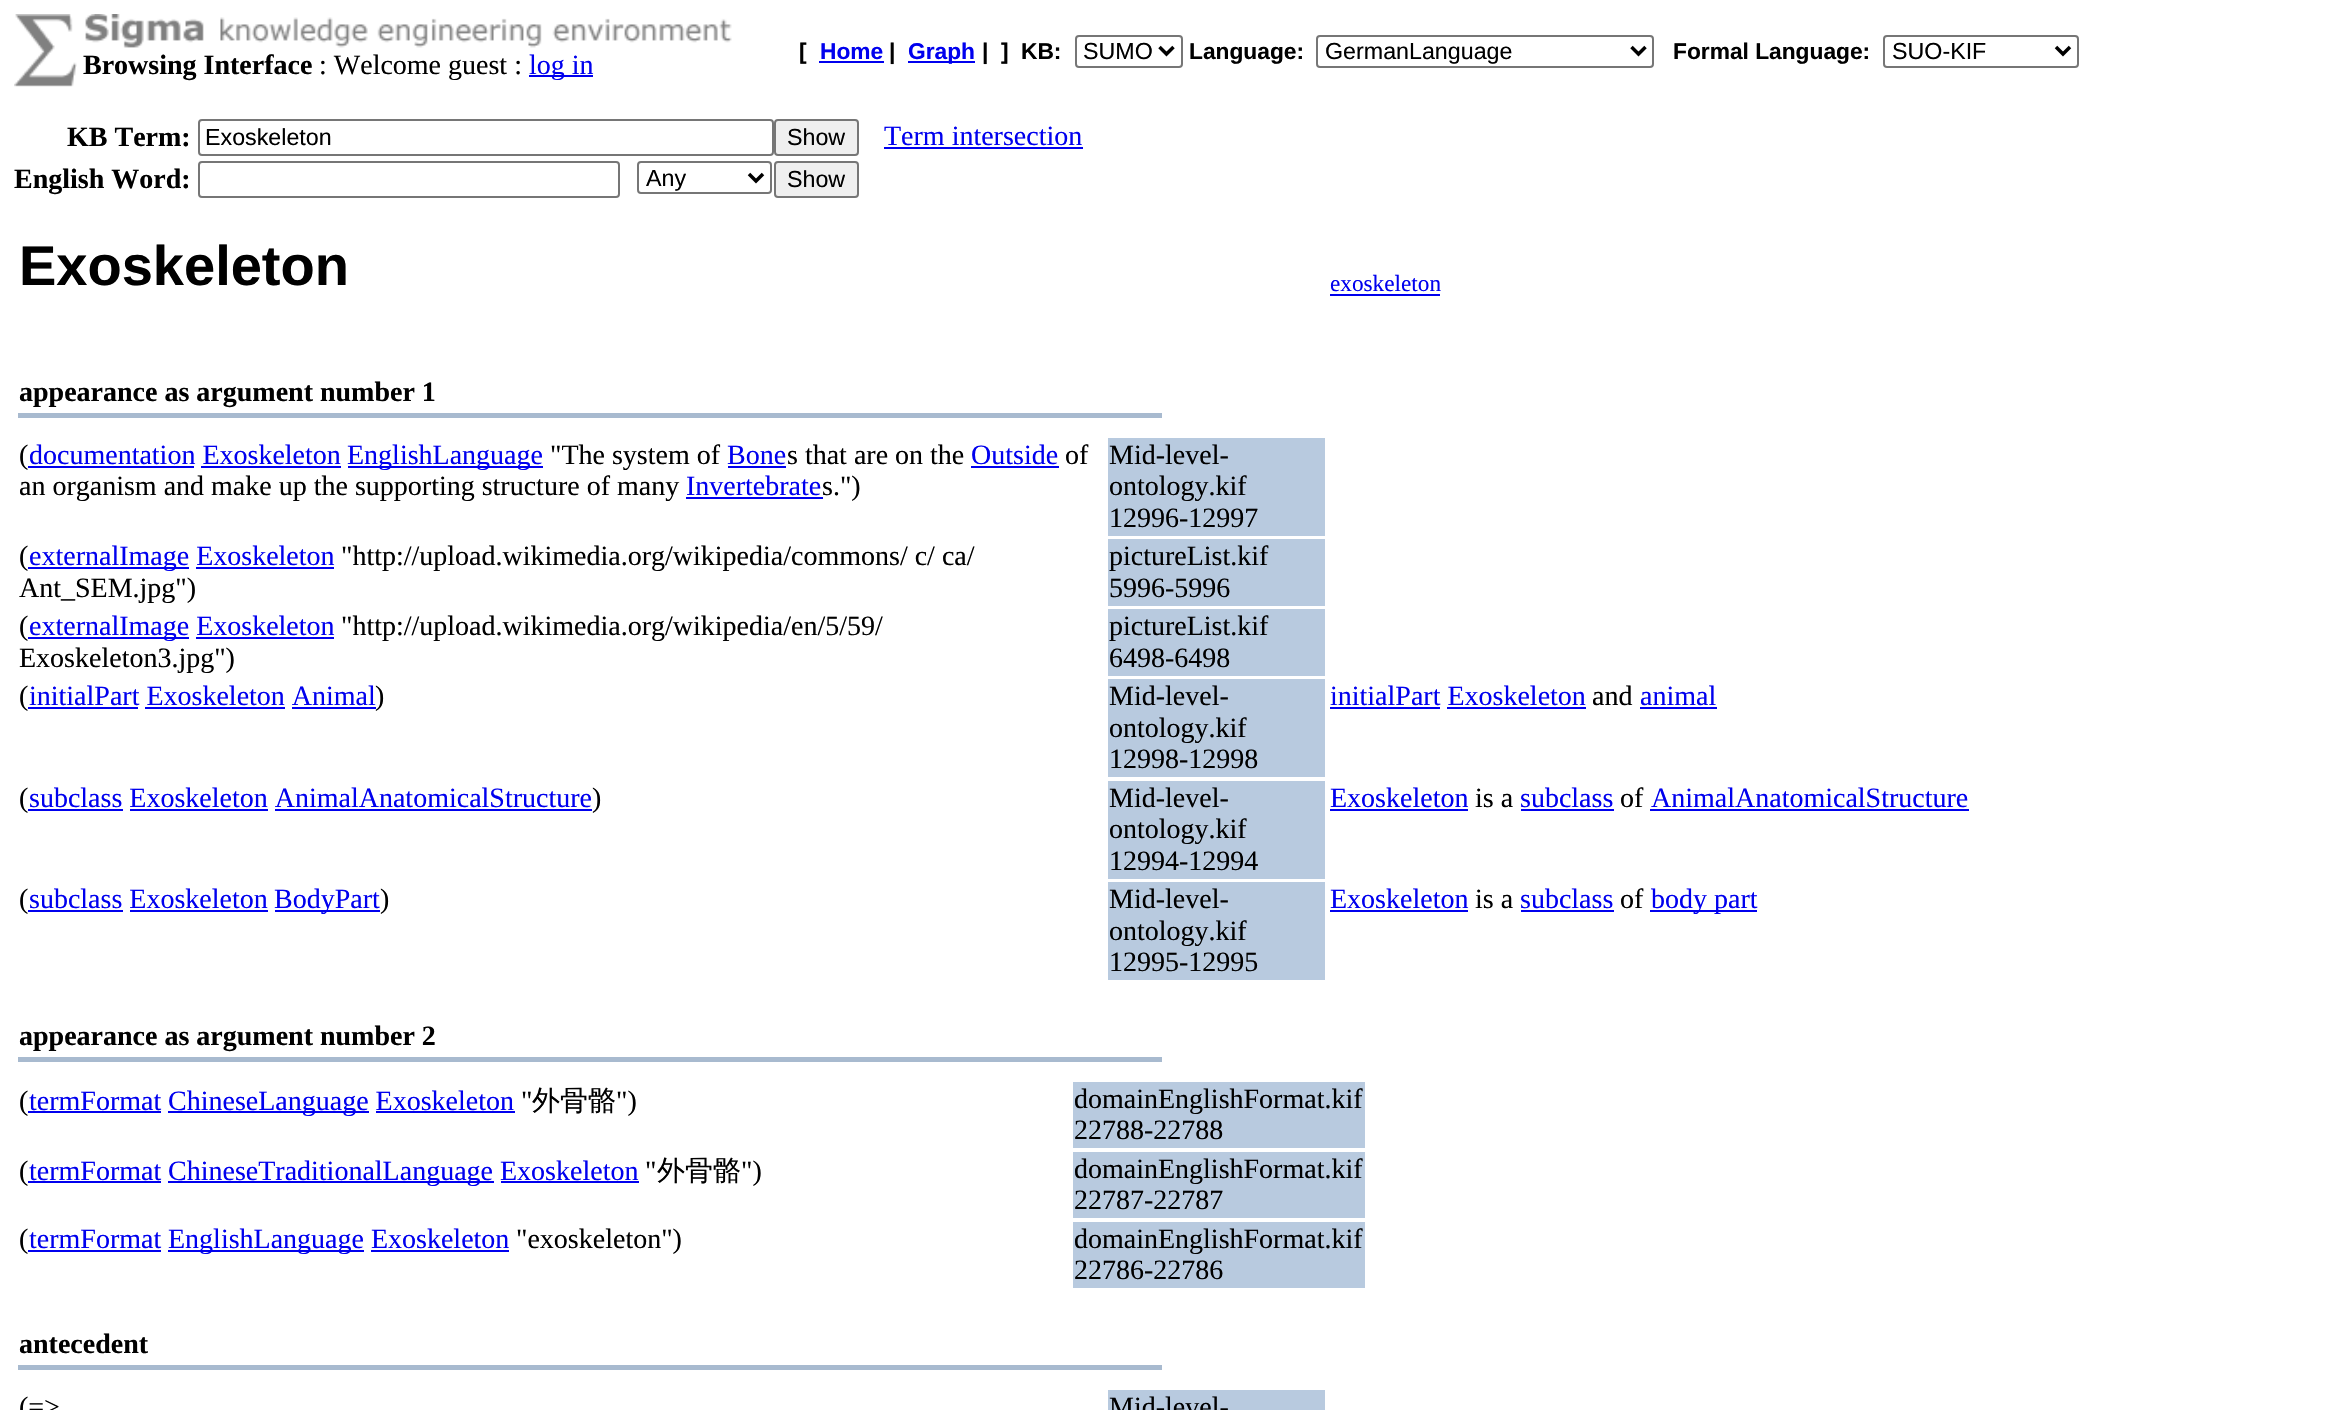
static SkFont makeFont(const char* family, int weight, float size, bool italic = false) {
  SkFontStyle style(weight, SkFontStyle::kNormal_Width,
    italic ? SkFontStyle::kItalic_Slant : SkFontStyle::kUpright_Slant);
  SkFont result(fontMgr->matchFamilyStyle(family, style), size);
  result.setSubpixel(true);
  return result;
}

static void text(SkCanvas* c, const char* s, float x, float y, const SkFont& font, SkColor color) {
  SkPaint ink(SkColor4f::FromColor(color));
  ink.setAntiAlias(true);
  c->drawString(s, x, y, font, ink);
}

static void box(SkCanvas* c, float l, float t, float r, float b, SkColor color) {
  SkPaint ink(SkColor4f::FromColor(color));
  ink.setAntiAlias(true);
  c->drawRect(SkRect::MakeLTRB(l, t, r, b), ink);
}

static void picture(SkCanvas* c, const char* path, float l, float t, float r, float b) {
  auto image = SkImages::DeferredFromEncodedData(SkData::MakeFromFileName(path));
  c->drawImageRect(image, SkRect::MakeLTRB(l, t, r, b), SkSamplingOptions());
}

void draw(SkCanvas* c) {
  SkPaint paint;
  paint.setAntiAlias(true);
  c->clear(0xffffffff);
  picture(c, "img_01.png", 14, 14, 77, 87);
  picture(c, "img_02.png", 85, 14, 732, 48);
  SkFont face1 = makeFont("Liberation Serif", 700, 28);
  text(c, "Browsing Interface", 83, 74, face1, 0xff000000);
  SkFont face2 = makeFont("Liberation Serif", 400, 28);
  text(c, ": Welcome guest :", 319, 74, face2, 0xff000000);
  box(c, 529, 75, 593, 77, 0xff0000ee);
  text(c, "log in", 529, 74, face2, 0xff0000ee);
  SkFont face3 = makeFont("Liberation Sans", 700, 22.75f);
  text(c, "[", 799, 59, face3, 0xff000000);
  text(c, "Home", 820, 59, face3, 0xff0000ee);
  box(c, 819, 61, 884, 63, 0xff0000ee);
  text(c, "|", 889, 59, face3, 0xff000000);
  box(c, 908, 61, 975, 63, 0xff0000ee);
  text(c, "Graph", 908, 59, face3, 0xff0000ee);
  text(c, "|", 982, 59, face3, 0xff000000);
  text(c, "]", 1001, 59, face3, 0xff000000);
  text(c, "KB:", 1021, 59, face3, 0xff000000);
  paint.setStyle(SkPaint::kStroke_Style);
  paint.setStrokeWidth(2);
  paint.setColor(0xff767676);
  c->drawRoundRect(SkRect::MakeLTRB(1076, 36, 1182, 67), 3, 3, paint);
  paint.setStrokeWidth(3.5f);
  paint.setColor(0xff000000);
  c->drawPath(SkPathBuilder().moveTo(1159.5f, 47).lineTo(1166.5f, 54).lineTo(1173.5f, 47).detach(), paint);
  SkFont face4 = makeFont("Liberation Sans", 400, 23.25f);
  text(c, "SUMO", 1083, 59, face4, 0xff000000);
  text(c, "Language:", 1189, 59, face3, 0xff000000);
  paint.setStrokeWidth(2);
  paint.setColor(0xff767676);
  c->drawRoundRect(SkRect::MakeLTRB(1317, 36, 1653, 67), 3, 3, paint);
  paint.setStrokeWidth(3.5f);
  paint.setColor(0xff000000);
  c->drawPath(SkPathBuilder().moveTo(1631.5f, 47).lineTo(1638.5f, 54).lineTo(1645.5f, 47).detach(), paint);
  text(c, "GermanLanguage", 1325, 59, face4, 0xff000000);
  text(c, "Formal Language:", 1673, 59, face3, 0xff000000);
  paint.setStrokeWidth(2);
  paint.setColor(0xff767676);
  c->drawRoundRect(SkRect::MakeLTRB(1884, 36, 2078, 67), 3, 3, paint);
  paint.setStrokeWidth(3.5f);
  paint.setColor(0xff000000);
  c->drawPath(SkPathBuilder().moveTo(2056, 47).lineTo(2063, 54).lineTo(2070, 47).detach(), paint);
  text(c, "SUO-KIF", 1892, 59, face4, 0xff000000);
  text(c, "KB Term:", 67, 146, face1, 0xff000000);
  paint.setStrokeWidth(2);
  paint.setColor(0xff767676);
  c->drawRoundRect(SkRect::MakeLTRB(199, 120, 773, 155), 3, 3, paint);
  text(c, "Exoskeleton", 205, 145, face4, 0xff000000);
  paint.setStyle(SkPaint::kFill_Style);
  paint.setColor(0xffefefef);
  c->drawRoundRect(SkRect::MakeLTRB(775, 120, 858, 155), 3, 3, paint);
  paint.setStyle(SkPaint::kStroke_Style);
  paint.setColor(0xff767676);
  c->drawRoundRect(SkRect::MakeLTRB(775, 120, 858, 155), 3, 3, paint);
  text(c, "Show", 787, 145, face4, 0xff000000);
  text(c, "Term intersection", 884, 145, face2, 0xff0000ee);
  box(c, 884, 147, 1083, 149, 0xff0000ee);
  text(c, "English Word:", 14, 188, face1, 0xff000000);
  c->drawRoundRect(SkRect::MakeLTRB(199, 162, 619, 197), 3, 3, paint);
  c->drawRoundRect(SkRect::MakeLTRB(638, 162, 771, 193), 3, 3, paint);
  paint.setStrokeWidth(3.5f);
  paint.setColor(0xff000000);
  c->drawPath(SkPathBuilder().moveTo(749, 174).lineTo(756, 181).lineTo(763, 174).detach(), paint);
  text(c, "Any", 646, 186, face4, 0xff000000);
  paint.setStyle(SkPaint::kFill_Style);
  paint.setColor(0xffefefef);
  c->drawRoundRect(SkRect::MakeLTRB(775, 162, 858, 197), 3, 3, paint);
  paint.setStyle(SkPaint::kStroke_Style);
  paint.setStrokeWidth(2);
  paint.setColor(0xff767676);
  c->drawRoundRect(SkRect::MakeLTRB(775, 162, 858, 197), 3, 3, paint);
  text(c, "Show", 787, 187, face4, 0xff000000);
  SkFont face5 = makeFont("Liberation Sans", 700, 56);
  text(c, "Exoskeleton", 19, 285, face5, 0xff000000);
  SkFont face6 = makeFont("Liberation Serif", 400, 23.25f);
  text(c, "exoskeleton", 1330, 291, face6, 0xff0000ee);
  box(c, 1330, 294, 1440, 296, 0xff0000ee);
  text(c, "appearance as argument number 1", 19, 401, face1, 0xff000000);
  box(c, 18, 413, 1162, 418, 0xffa8bacf);
  text(c, "(", 19, 464, face2, 0xff000000);
  text(c, "documentation Exoskeleton", 29, 464, face2, 0xff0000ee);
  box(c, 28, 466, 194, 468, 0xff0000ee);
  box(c, 348, 466, 543, 468, 0xff0000ee);
  text(c, "EnglishLanguage", 347, 464, face2, 0xff0000ee);
  text(c, "\"The system of", 550, 464, face2, 0xff000000);
  text(c, "Bone", 727, 464, face2, 0xff0000ee);
  box(c, 728, 466, 786, 468, 0xff0000ee);
  text(c, "s that are on the", 787, 464, face2, 0xff000000);
  text(c, "Outside", 971, 464, face2, 0xff0000ee);
  box(c, 971, 466, 1059, 468, 0xff0000ee);
  text(c, "of", 1065, 464, face2, 0xff000000);
  box(c, 201, 466, 341, 468, 0xff0000ee);
  text(c, "an organism and make up the supporting structure of many", 19, 495, face2, 0xff000000);
  text(c, "Invertebrate", 686, 495, face2, 0xff0000ee);
  box(c, 686, 497, 823, 499, 0xff0000ee);
  text(c, "s.\")", 822, 495, face2, 0xff000000);
  box(c, 1108, 438, 1325, 536, 0xffb8cadf);
  text(c, "Mid-level-", 1109, 464, face2, 0xff000000);
  text(c, "ontology.kif", 1109, 495, face2, 0xff000000);
  text(c, "12996-12997", 1109, 527, face2, 0xff000000);
  text(c, "(", 19, 565, face2, 0xff000000);
  box(c, 28, 567, 189, 569, 0xff0000ee);
  text(c, "externalImage Exoskeleton", 29, 565, face2, 0xff0000ee);
  text(c, "\"http://upload.wikimedia.org/wikipedia/commons/ c/ ca/", 341, 565, face2, 0xff000000);
  box(c, 196, 567, 334, 569, 0xff0000ee);
  text(c, "Ant_SEM.jpg\")", 19, 597, face2, 0xff000000);
  box(c, 1108, 539, 1325, 606, 0xffb8cadf);
  text(c, "pictureList.kif", 1109, 565, face2, 0xff000000);
  text(c, "5996-5996", 1109, 597, face2, 0xff000000);
  text(c, "(", 19, 635, face2, 0xff000000);
  box(c, 28, 637, 189, 639, 0xff0000ee);
  text(c, "externalImage Exoskeleton", 29, 635, face2, 0xff0000ee);
  text(c, "\"http://upload.wikimedia.org/wikipedia/en/5/59/", 341, 635, face2, 0xff000000);
  box(c, 196, 637, 334, 639, 0xff0000ee);
  text(c, "Exoskeleton3.jpg\")", 19, 667, face2, 0xff000000);
  box(c, 1108, 609, 1325, 676, 0xffb8cadf);
  text(c, "pictureList.kif", 1109, 635, face2, 0xff000000);
  text(c, "6498-6498", 1109, 667, face2, 0xff000000);
  text(c, "(", 19, 705, face2, 0xff000000);
  text(c, "initialPart Exoskeleton Animal", 29, 705, face2, 0xff0000ee);
  box(c, 28, 707, 138, 709, 0xff0000ee);
  text(c, ")", 375, 705, face2, 0xff000000);
  box(c, 145, 707, 285, 709, 0xff0000ee);
  box(c, 292, 707, 376, 709, 0xff0000ee);
  box(c, 1108, 679, 1325, 777, 0xffb8cadf);
  text(c, "Mid-level-", 1109, 705, face2, 0xff000000);
  text(c, "ontology.kif", 1109, 737, face2, 0xff000000);
  text(c, "12998-12998", 1109, 768, face2, 0xff000000);
  text(c, "initialPart Exoskeleton", 1330, 705, face2, 0xff0000ee);
  box(c, 1330, 707, 1440, 709, 0xff0000ee);
  text(c, "and", 1592, 705, face2, 0xff000000);
  text(c, "animal", 1640, 705, face2, 0xff0000ee);
  box(c, 1640, 707, 1717, 709, 0xff0000ee);
  box(c, 1447, 707, 1586, 709, 0xff0000ee);
  text(c, "(", 19, 807, face2, 0xff000000);
  text(c, "subclass Exoskeleton AnimalAnatomicalStructure", 29, 807, face2, 0xff0000ee);
  box(c, 28, 809, 123, 811, 0xff0000ee);
  text(c, ")", 592, 807, face2, 0xff000000);
  box(c, 130, 809, 268, 811, 0xff0000ee);
  box(c, 275, 809, 592, 811, 0xff0000ee);
  box(c, 1108, 781, 1325, 879, 0xffb8cadf);
  text(c, "Mid-level-", 1109, 807, face2, 0xff000000);
  text(c, "ontology.kif", 1109, 838, face2, 0xff000000);
  text(c, "12994-12994", 1109, 870, face2, 0xff000000);
  text(c, "Exoskeleton", 1330, 807, face2, 0xff0000ee);
  box(c, 1330, 809, 1468, 811, 0xff0000ee);
  text(c, "is a", 1475, 807, face2, 0xff000000);
  text(c, "subclass", 1520, 807, face2, 0xff0000ee);
  box(c, 1521, 809, 1614, 811, 0xff0000ee);
  text(c, "of", 1620, 807, face2, 0xff000000);
  text(c, "AnimalAnatomicalStructure", 1651, 807, face2, 0xff0000ee);
  box(c, 1650, 809, 1969, 811, 0xff0000ee);
  text(c, "(", 19, 908, face2, 0xff000000);
  text(c, "subclass Exoskeleton", 29, 908, face2, 0xff0000ee);
  box(c, 28, 910, 123, 912, 0xff0000ee);
  box(c, 275, 910, 380, 912, 0xff0000ee);
  text(c, "BodyPart", 274, 908, face2, 0xff0000ee);
  text(c, ")", 380, 908, face2, 0xff000000);
  box(c, 130, 910, 268, 912, 0xff0000ee);
  box(c, 1108, 882, 1325, 980, 0xffb8cadf);
  text(c, "Mid-level-", 1109, 908, face2, 0xff000000);
  text(c, "ontology.kif", 1109, 940, face2, 0xff000000);
  text(c, "12995-12995", 1109, 971, face2, 0xff000000);
  text(c, "Exoskeleton", 1330, 908, face2, 0xff0000ee);
  box(c, 1330, 910, 1468, 912, 0xff0000ee);
  text(c, "is a", 1475, 908, face2, 0xff000000);
  text(c, "subclass", 1520, 908, face2, 0xff0000ee);
  box(c, 1521, 910, 1614, 912, 0xff0000ee);
  text(c, "of", 1620, 908, face2, 0xff000000);
  box(c, 1650, 910, 1757, 912, 0xff0000ee);
  text(c, "body part", 1651, 908, face2, 0xff0000ee);
  text(c, "appearance as argument number 2", 19, 1045, face1, 0xff000000);
  box(c, 18, 1057, 1162, 1062, 0xffa8bacf);
  text(c, "(", 19, 1110, face2, 0xff000000);
  text(c, "termFormat", 29, 1110, face2, 0xff0000ee);
  box(c, 28, 1111, 161, 1113, 0xff0000ee);
  box(c, 168, 1111, 369, 1113, 0xff0000ee);
  text(c, "ChineseLanguage Exoskeleton", 168, 1110, face2, 0xff0000ee);
  text(c, "\"", 521, 1110, face2, 0xff000000);
  SkFont face7 = makeFont("WenQuanYi Zen Hei", 500, 28);
  text(c, "外骨骼", 532, 1110, face7, 0xff000000);
  text(c, "\")", 616, 1110, face2, 0xff000000);
  box(c, 376, 1111, 515, 1113, 0xff0000ee);
  box(c, 1073, 1082, 1365, 1148, 0xffb8cadf);
  text(c, "domainEnglishFormat.kif", 1074, 1108, face2, 0xff000000);
  text(c, "22788-22788", 1074, 1139, face2, 0xff000000);
  text(c, "(", 19, 1180, face2, 0xff000000);
  text(c, "termFormat", 29, 1180, face2, 0xff0000ee);
  box(c, 28, 1181, 161, 1183, 0xff0000ee);
  box(c, 168, 1181, 494, 1183, 0xff0000ee);
  text(c, "ChineseTraditionalLanguage Exoskeleton", 168, 1180, face2, 0xff0000ee);
  text(c, "\"", 645, 1180, face2, 0xff000000);
  text(c, "外骨骼", 657, 1180, face7, 0xff000000);
  text(c, "\")", 741, 1180, face2, 0xff000000);
  box(c, 501, 1181, 639, 1183, 0xff0000ee);
  box(c, 1073, 1152, 1365, 1218, 0xffb8cadf);
  text(c, "domainEnglishFormat.kif", 1074, 1178, face2, 0xff000000);
  text(c, "22787-22787", 1074, 1209, face2, 0xff000000);
  text(c, "(", 19, 1248, face2, 0xff000000);
  text(c, "termFormat", 29, 1248, face2, 0xff0000ee);
  box(c, 28, 1250, 161, 1252, 0xff0000ee);
  box(c, 168, 1250, 364, 1252, 0xff0000ee);
  text(c, "EnglishLanguage Exoskeleton", 168, 1248, face2, 0xff0000ee);
  text(c, "\"exoskeleton\")", 516, 1248, face2, 0xff000000);
  box(c, 371, 1250, 509, 1252, 0xff0000ee);
  box(c, 1073, 1222, 1365, 1288, 0xffb8cadf);
  text(c, "domainEnglishFormat.kif", 1074, 1248, face2, 0xff000000);
  text(c, "22786-22786", 1074, 1279, face2, 0xff000000);
  text(c, "antecedent", 19, 1353, face1, 0xff000000);
  box(c, 18, 1365, 1162, 1370, 0xffa8bacf);
  text(c, "(=>", 19, 1416, face2, 0xff000000);
  box(c, 1108, 1390, 1325, 1410, 0xffb8cadf);
  text(c, "Mid-level-", 1109, 1416, face2, 0xff000000);
}
